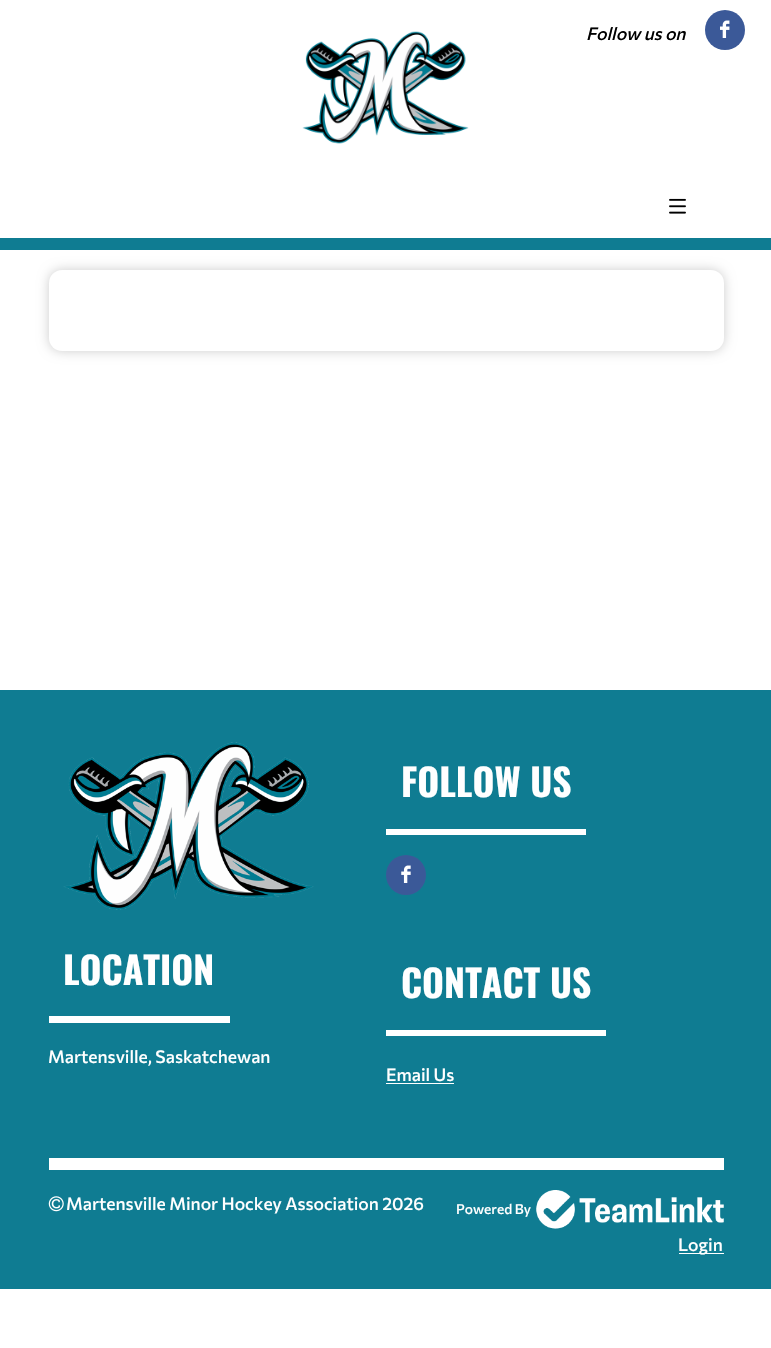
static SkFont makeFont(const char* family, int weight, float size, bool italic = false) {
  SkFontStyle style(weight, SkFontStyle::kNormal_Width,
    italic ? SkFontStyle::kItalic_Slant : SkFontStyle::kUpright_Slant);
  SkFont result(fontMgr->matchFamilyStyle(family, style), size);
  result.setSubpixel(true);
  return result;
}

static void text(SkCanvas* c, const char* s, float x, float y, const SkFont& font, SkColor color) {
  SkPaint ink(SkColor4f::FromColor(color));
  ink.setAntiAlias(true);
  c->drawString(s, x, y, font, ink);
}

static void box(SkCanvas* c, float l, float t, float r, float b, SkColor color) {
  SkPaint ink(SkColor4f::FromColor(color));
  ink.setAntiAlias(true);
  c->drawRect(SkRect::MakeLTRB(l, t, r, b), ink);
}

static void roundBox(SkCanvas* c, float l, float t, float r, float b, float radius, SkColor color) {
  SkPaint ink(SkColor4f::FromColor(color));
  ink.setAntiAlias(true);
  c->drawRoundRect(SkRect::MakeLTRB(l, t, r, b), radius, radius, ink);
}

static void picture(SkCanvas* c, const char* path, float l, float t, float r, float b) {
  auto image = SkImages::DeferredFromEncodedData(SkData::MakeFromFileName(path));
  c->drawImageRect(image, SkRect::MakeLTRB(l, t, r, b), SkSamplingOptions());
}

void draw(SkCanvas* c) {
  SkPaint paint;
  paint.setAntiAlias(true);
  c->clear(0xffffffff);
  SkFont face1 = makeFont("Commissioner", 500, 17.5f, true);
  text(c, "Follow us on", 586, 40, face1, 0xff000000);
  paint.setColor(0xff3b5998);
  c->drawCircle(725, 30, 20, paint);
  picture(c, "img_01.png", 720, 20, 730, 38);
  box(c, 0, 238, 771, 250, 0xff0f7c92);
  picture(c, "img_02.png", 302, 31, 469, 144);
  picture(c, "img_03.png", 669, 198, 686, 214);
  paint.setColor(0x33000000);
  paint.setMaskFilter(SkMaskFilter::MakeBlur(kNormal_SkBlurStyle, 6));
  c->drawRoundRect(SkRect::MakeLTRB(49, 270, 724, 351), 13, 13, paint);
  paint.setMaskFilter(nullptr);
  roundBox(c, 49, 270, 724, 351, 13, 0xffffffff);
  box(c, 0, 690, 771, 1289, 0xff0f7c92);
  box(c, 49, 1158, 724, 1170, 0xffffffff);
  picture(c, "img_04.png", 63, 742, 314, 910);
  box(c, 386, 829, 586, 835, 0xffffffff);
  SkFont face2 = makeFont("Oswald", 700, 37.5f);
  text(c, "FOLLOW US", 401, 797, face2, 0xffffffff);
  paint.setColor(0xff3b5998);
  c->drawCircle(406, 875, 20, paint);
  picture(c, "img_05.png", 401, 865, 411, 883);
  box(c, 49, 1016, 230, 1023, 0xffffffff);
  text(c, "LOCATION", 63, 985, face2, 0xffffffff);
  SkFont face3 = makeFont("Commissioner", 500, 17.5f);
  text(c, "Martensville, Saskatchewan", 48, 1063, face3, 0xffffffff);
  box(c, 386, 1030, 606, 1036, 0xffffffff);
  text(c, "CONTACT US", 401, 998, face2, 0xffffffff);
  text(c, "Email Us", 386, 1081, face3, 0xffffffff);
  box(c, 386, 1083, 454, 1084, 0xffffffff);
  picture(c, "img_06.png", 48, 1196, 64, 1212);
  text(c, "Martensville Minor Hockey Association 2026", 66, 1210, face3, 0xffffffff);
  SkFont face4 = makeFont("Commissioner", 500, 13.75f);
  text(c, "Powered By", 456, 1214, face4, 0xffffffff);
  picture(c, "img_07.png", 536, 1190, 724, 1229);
  box(c, 679, 1253, 724, 1254, 0xffffffff);
  text(c, "Login", 678, 1251, face3, 0xffffffff);
}
